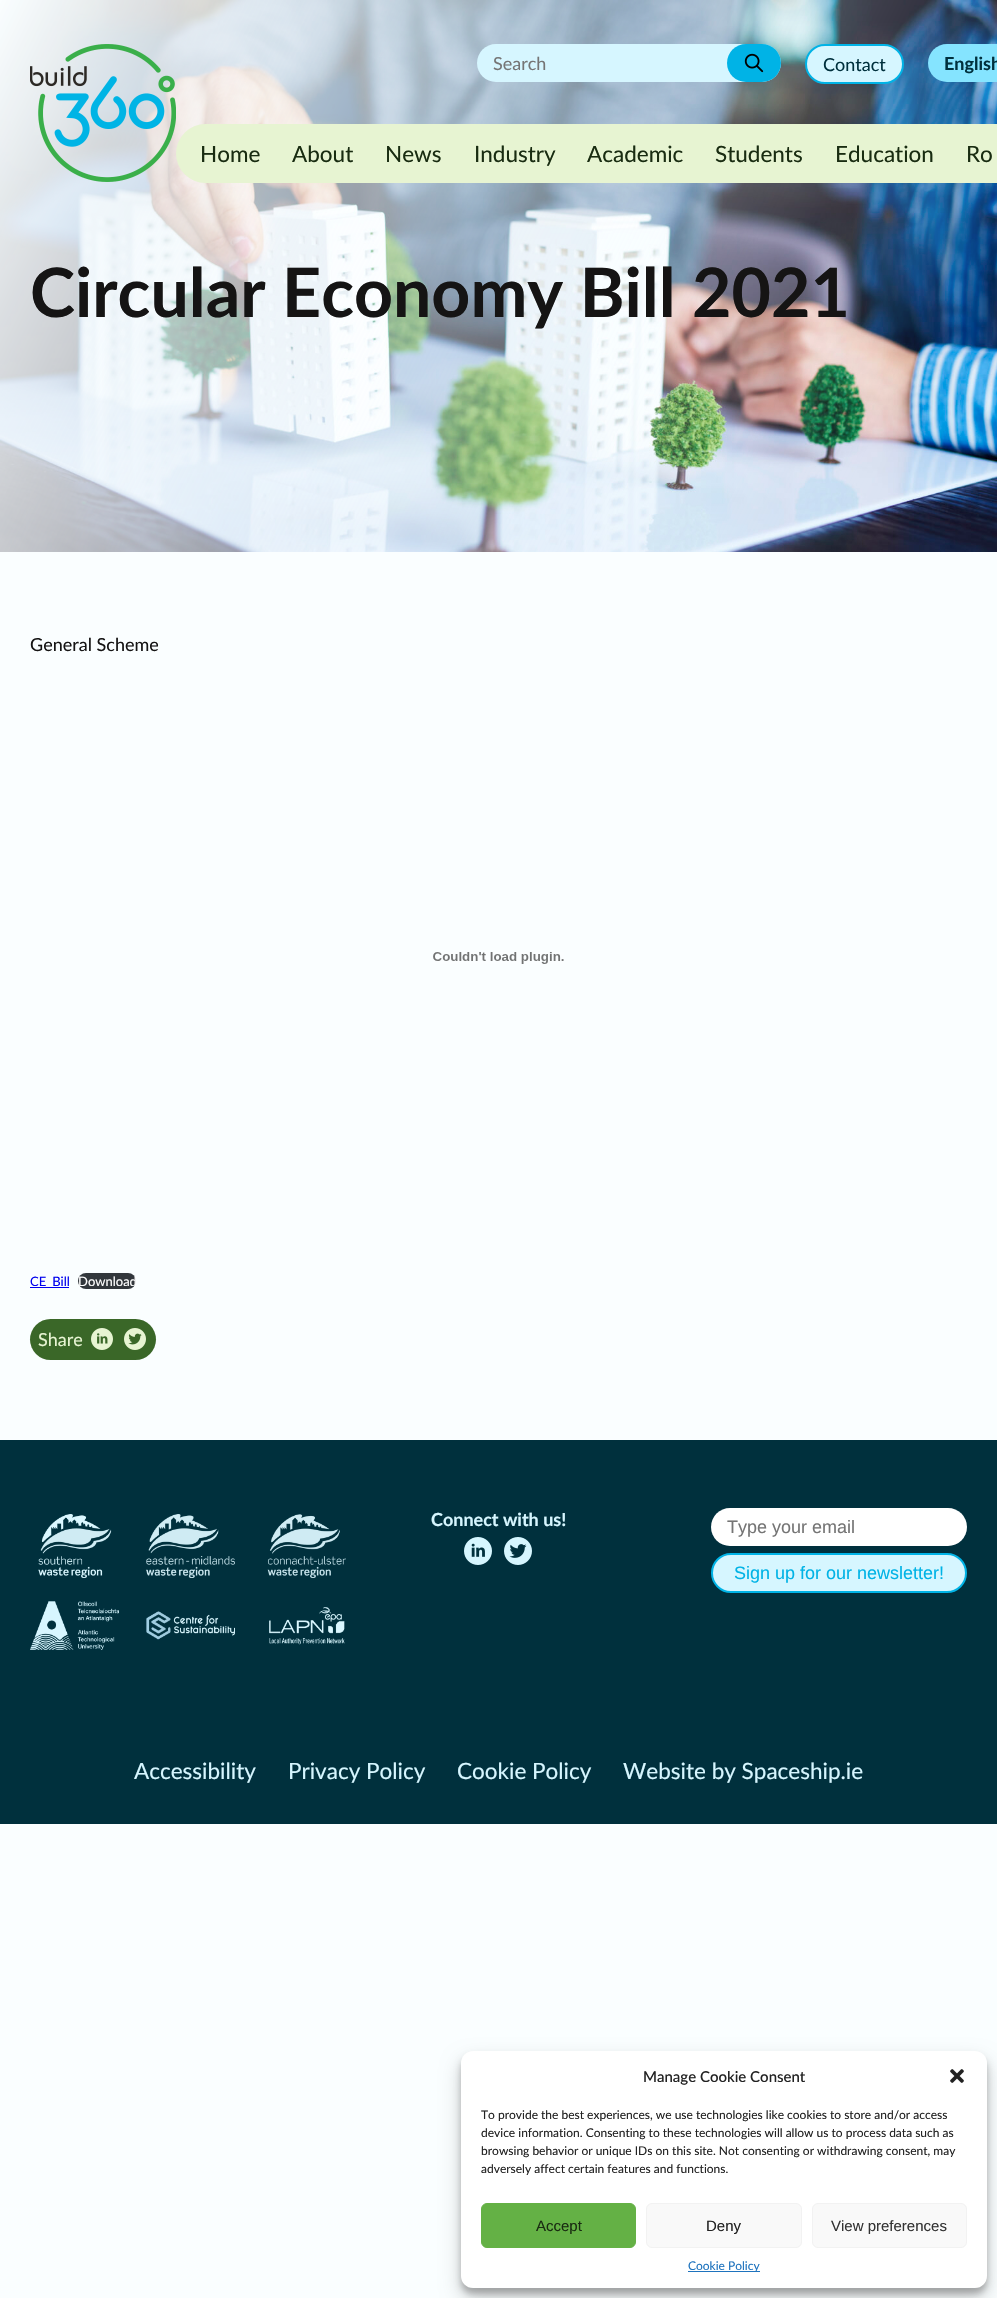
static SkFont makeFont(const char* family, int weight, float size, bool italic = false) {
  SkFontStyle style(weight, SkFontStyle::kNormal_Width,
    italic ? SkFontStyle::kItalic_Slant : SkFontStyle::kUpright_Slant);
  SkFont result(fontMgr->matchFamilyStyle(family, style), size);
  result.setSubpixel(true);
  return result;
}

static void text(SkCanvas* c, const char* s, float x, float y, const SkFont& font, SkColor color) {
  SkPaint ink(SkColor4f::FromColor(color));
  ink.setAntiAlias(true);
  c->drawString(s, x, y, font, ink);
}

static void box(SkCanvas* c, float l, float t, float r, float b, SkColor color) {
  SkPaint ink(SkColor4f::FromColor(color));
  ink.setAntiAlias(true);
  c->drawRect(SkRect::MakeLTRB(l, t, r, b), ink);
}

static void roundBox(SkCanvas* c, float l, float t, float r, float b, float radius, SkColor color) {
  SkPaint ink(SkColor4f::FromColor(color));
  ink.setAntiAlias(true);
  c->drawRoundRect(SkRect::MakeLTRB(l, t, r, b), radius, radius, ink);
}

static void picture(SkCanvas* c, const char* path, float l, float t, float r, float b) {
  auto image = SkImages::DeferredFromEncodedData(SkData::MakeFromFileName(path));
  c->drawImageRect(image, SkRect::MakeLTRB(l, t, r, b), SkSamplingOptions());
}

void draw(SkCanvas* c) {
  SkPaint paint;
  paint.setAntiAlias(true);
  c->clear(0xfffafeff);
  picture(c, "img_03.png", 0, 0, 997, 552);
  picture(c, "img_01.png", 30, 44, 176, 182);
  roundBox(c, 477, 44, 781, 82, 19, 0xffd6f6ff);
  SkFont face1 = makeFont("Lato", 400, 18);
  text(c, "Search", 493, 70, face1, 0xff757575);
  roundBox(c, 727, 44, 781, 82, 19, 0xff00b3e6);
  picture(c, "img_02.png", 744, 53, 764, 73);
  paint.setColor(0xffd6f6ff);
  c->drawRoundRect(SkRect::MakeLTRB(806, 45, 903, 83), 19, 19, paint);
  paint.setStyle(SkPaint::kStroke_Style);
  paint.setStrokeWidth(2);
  paint.setColor(0xff00b3e6);
  c->drawRoundRect(SkRect::MakeLTRB(806, 45, 903, 83), 19, 19, paint);
  text(c, "Contact", 823, 71, face1, 0xff00303d);
  roundBox(c, 928, 44, 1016, 82, 19, 0xff85e4ff);
  SkFont face2 = makeFont("Lato", 700, 18);
  text(c, "English", 944, 70, face2, 0xff00303d);
  roundBox(c, 176, 124, 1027, 183, 29.5f, 0xffe7f4d2);
  SkFont face3 = makeFont("Lato", 400, 22.5f);
  text(c, "Home", 200, 162, face3, 0xff192c11);
  text(c, "About", 292, 162, face3, 0xff192c11);
  text(c, "News", 385, 162, face3, 0xff192c11);
  text(c, "Industry", 474, 162, face3, 0xff192c11);
  text(c, "Academic", 587, 162, face3, 0xff192c11);
  text(c, "Students", 715, 162, face3, 0xff192c11);
  text(c, "Education", 835, 162, face3, 0xff192c11);
  text(c, "Ro", 966, 162, face3, 0xff192c11);
  SkFont face4 = makeFont("Lato", 700, 68);
  text(c, "Circular Economy Bill 2021", 30, 317, face4, 0xff151414);
  text(c, "General Scheme", 30, 651, face1, 0xff151414);
  picture(c, "img_04.png", 433, 952, 564, 964);
  box(c, 30, 1287, 69, 1288, 0xff0000ee);
  SkFont face5 = makeFont("Lato", 400, 13);
  text(c, "CE_Bill", 30, 1286, face5, 0xff0000ee);
  roundBox(c, 78, 1273, 136, 1289, 8, 0xff32373c);
  text(c, "Download", 78, 1286, face5, 0xffffffff);
  roundBox(c, 30, 1319, 156, 1360, 20.5f, 0xff3a6728);
  text(c, "Share", 38, 1346, face1, 0xffe7f4d2);
  picture(c, "img_05.png", 91, 1328, 113, 1350);
  picture(c, "img_06.png", 124, 1328, 146, 1350);
  box(c, 0, 1440, 997, 1824, 0xff00303d);
  picture(c, "img_07.png", 38, 1514, 112, 1578);
  picture(c, "img_08.png", 146, 1514, 235, 1578);
  picture(c, "img_09.png", 267, 1514, 346, 1578);
  picture(c, "img_10.png", 30, 1601, 119, 1650);
  picture(c, "img_11.png", 146, 1611, 235, 1640);
  picture(c, "img_12.png", 269, 1607, 345, 1645);
  text(c, "Connect with us!", 431, 1526, face2, 0xffd6f6ff);
  picture(c, "img_13.png", 464, 1537, 492, 1565);
  picture(c, "img_14.png", 504, 1537, 532, 1565);
  roundBox(c, 711, 1508, 967, 1546, 19, 0xffffffff);
  SkFont face6 = makeFont("Liberation Sans", 400, 18);
  text(c, "Type your email", 727, 1533, face6, 0xff757575);
  paint.setStyle(SkPaint::kFill_Style);
  paint.setColor(0xffd6f6ff);
  c->drawRoundRect(SkRect::MakeLTRB(712, 1554, 966, 1592), 19, 19, paint);
  paint.setStyle(SkPaint::kStroke_Style);
  paint.setColor(0xff00b3e6);
  c->drawRoundRect(SkRect::MakeLTRB(712, 1554, 966, 1592), 19, 19, paint);
  text(c, "Sign up for our newsletter!", 734, 1579, face6, 0xff00b3e6);
  text(c, "Accessibility", 134, 1779, face3, 0xffd6f6ff);
  text(c, "Privacy Policy", 288, 1779, face3, 0xffd6f6ff);
  text(c, "Cookie Policy", 457, 1779, face3, 0xffd6f6ff);
  text(c, "Website by Spaceship.ie", 623, 1779, face3, 0xffd6f6ff);
  paint.setStyle(SkPaint::kFill_Style);
  paint.setColor(0x3b000000);
  paint.setMaskFilter(SkMaskFilter::MakeBlur(kNormal_SkBlurStyle, 3));
  c->drawRoundRect(SkRect::MakeLTRB(461, 2057, 987, 2294), 12, 12, paint);
  paint.setMaskFilter(nullptr);
  paint.setColor(0x30000000);
  paint.setMaskFilter(SkMaskFilter::MakeBlur(kNormal_SkBlurStyle, 10));
  c->drawRoundRect(SkRect::MakeLTRB(461, 2061, 987, 2298), 12, 12, paint);
  paint.setMaskFilter(nullptr);
  roundBox(c, 461, 2051, 987, 2288, 12, 0xffffffff);
  SkFont face7 = makeFont("Lato", 500, 15);
  text(c, "Manage Cookie Consent", 643, 2082, face7, 0xff222222);
  picture(c, "img_15.png", 950, 2069, 964, 2083);
  SkFont face8 = makeFont("Lato", 400, 12);
  text(c, "To provide the best experiences, we use technologies like cookies to store and/or access", 481, 2119, face8, 0xff222222);
  text(c, "device information. Consenting to these technologies will allow us to process data such as", 481, 2137, face8, 0xff222222);
  text(c, "browsing behavior or unique IDs on this site. Not consenting or withdrawing consent, may", 481, 2155, face8, 0xff222222);
  text(c, "adversely affect certain features and functions.", 481, 2173, face8, 0xff222222);
  paint.setColor(0xff64b145);
  c->drawRoundRect(SkRect::MakeLTRB(481.5f, 2203.5f, 635.5f, 2247.5f), 5.5f, 5.5f, paint);
  paint.setStyle(SkPaint::kStroke_Style);
  paint.setStrokeWidth(1);
  c->drawRoundRect(SkRect::MakeLTRB(481.5f, 2203.5f, 635.5f, 2247.5f), 5.5f, 5.5f, paint);
  SkFont face9 = makeFont("Liberation Sans", 400, 15);
  text(c, "Accept", 536, 2231, face9, 0xff192c11);
  paint.setStyle(SkPaint::kFill_Style);
  paint.setColor(0xfff9f9f9);
  c->drawRoundRect(SkRect::MakeLTRB(646.5f, 2203.5f, 801.5f, 2247.5f), 5.5f, 5.5f, paint);
  paint.setStyle(SkPaint::kStroke_Style);
  paint.setColor(0xfff2f2f2);
  c->drawRoundRect(SkRect::MakeLTRB(646.5f, 2203.5f, 801.5f, 2247.5f), 5.5f, 5.5f, paint);
  text(c, "Deny", 706, 2231, face9, 0xff222222);
  paint.setStyle(SkPaint::kFill_Style);
  paint.setColor(0xfff9f9f9);
  c->drawRoundRect(SkRect::MakeLTRB(812.5f, 2203.5f, 966.5f, 2247.5f), 5.5f, 5.5f, paint);
  paint.setStyle(SkPaint::kStroke_Style);
  paint.setColor(0xfff2f2f2);
  c->drawRoundRect(SkRect::MakeLTRB(812.5f, 2203.5f, 966.5f, 2247.5f), 5.5f, 5.5f, paint);
  text(c, "View preferences", 831, 2231, face9, 0xff333333);
  box(c, 688, 2271, 760, 2272, 0xff1e73be);
  text(c, "Cookie Policy", 688, 2270, face8, 0xff1e73be);
}
